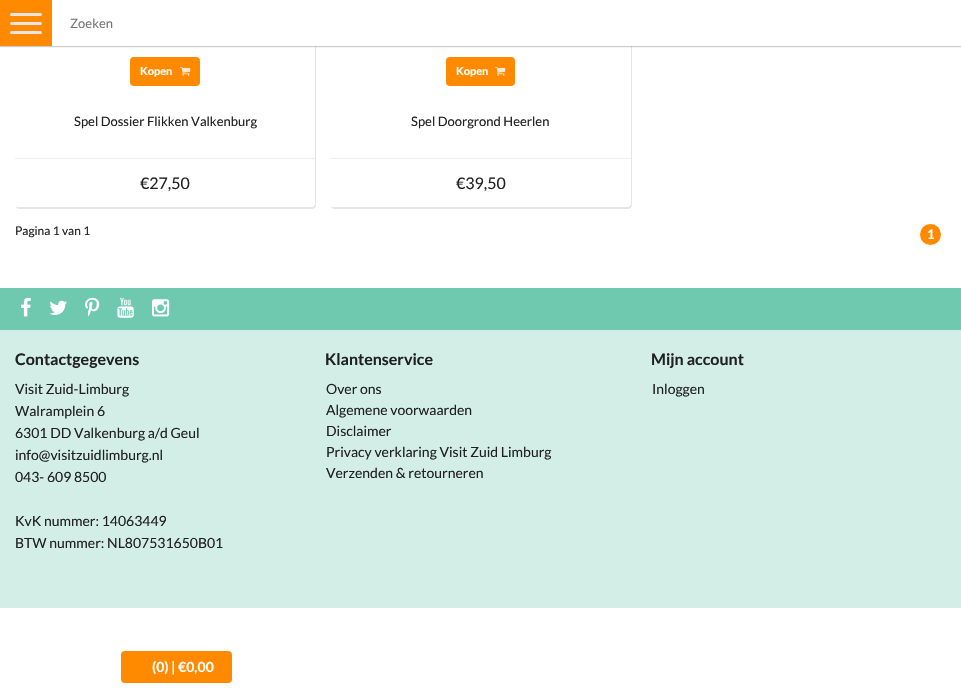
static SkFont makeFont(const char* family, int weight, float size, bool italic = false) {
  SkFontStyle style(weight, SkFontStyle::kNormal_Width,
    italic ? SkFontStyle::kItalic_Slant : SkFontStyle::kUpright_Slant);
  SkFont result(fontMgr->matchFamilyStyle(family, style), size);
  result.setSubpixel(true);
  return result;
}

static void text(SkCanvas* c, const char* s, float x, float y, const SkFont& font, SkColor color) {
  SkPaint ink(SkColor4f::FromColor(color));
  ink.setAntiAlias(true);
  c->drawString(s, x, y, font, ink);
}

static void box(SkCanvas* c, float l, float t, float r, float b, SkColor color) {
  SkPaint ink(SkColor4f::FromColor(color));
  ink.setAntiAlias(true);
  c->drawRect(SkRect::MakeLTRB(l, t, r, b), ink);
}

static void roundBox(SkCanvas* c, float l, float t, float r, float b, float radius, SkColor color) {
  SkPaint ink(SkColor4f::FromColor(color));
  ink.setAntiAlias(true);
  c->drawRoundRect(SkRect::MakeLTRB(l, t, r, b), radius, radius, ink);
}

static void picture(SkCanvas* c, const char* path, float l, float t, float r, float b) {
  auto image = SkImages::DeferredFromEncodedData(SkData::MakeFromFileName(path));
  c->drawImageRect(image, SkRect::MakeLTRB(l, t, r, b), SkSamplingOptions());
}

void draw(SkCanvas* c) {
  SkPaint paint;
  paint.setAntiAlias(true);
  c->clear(0xffffffff);
  paint.setColor(0xffe5e5e5);
  c->drawPath(SkPathBuilder().moveTo(16, 206).cubicTo(16, 208, 18, 209, 20, 209).lineTo(312, 209).cubicTo(314, 209, 316, 207, 316, 205).lineTo(316, -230).cubicTo(316, -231, 316, -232, 315, -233).lineTo(315, 203).cubicTo(315, 205, 313, 207, 311, 207).lineTo(19, 207).cubicTo(18, 207, 17, 207, 16, 206).close().detach(), paint);
  roundBox(c, 15, -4, 315, 207, 4, 0xffffffff);
  c->drawPath(SkPathBuilder().moveTo(331, 206).cubicTo(331, 208, 333, 209, 335, 209).lineTo(628, 209).cubicTo(630, 209, 632, 207, 632, 205).lineTo(632, -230).cubicTo(632, -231, 632, -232, 631, -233).lineTo(631, 203).cubicTo(631, 205, 629, 207, 627, 207).lineTo(334, 207).cubicTo(333, 207, 332, 207, 331, 206).close().detach(), paint);
  roundBox(c, 330, -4, 631, 207, 4, 0xffffffff);
  paint.setColor(0x33000000);
  paint.setMaskFilter(SkMaskFilter::MakeBlur(kNormal_SkBlurStyle, 0.5f));
  c->drawRect(SkRect::MakeLTRB(0, 1, 961, 47), paint);
  paint.setMaskFilter(nullptr);
  box(c, 52, 0, 961, 46, 0xffffffff);
  box(c, 0, 0, 52, 46, 0xffff8a00);
  roundBox(c, 10, 13, 42, 16, 1.5f, 0xffe5e5e5);
  roundBox(c, 10, 22, 42, 25, 1.5f, 0xffe5e5e5);
  roundBox(c, 10, 31, 42, 34, 1.5f, 0xffe5e5e5);
  SkFont face1 = makeFont("Lato", 400, 13);
  text(c, "Zoeken", 70, 28, face1, 0xff777777);
  roundBox(c, 130, 57, 200, 86, 4, 0xffff8a00);
  SkFont face2 = makeFont("Lato", 700, 11);
  text(c, "Kopen", 140, 75, face2, 0xffffffff);
  picture(c, "img_01.png", 180, 67, 191, 76);
  text(c, "Spel Dossier Flikken Valkenburg", 74, 126, face1, 0xff202020);
  box(c, 15, 158, 315, 159, 0xffeeeeee);
  SkFont face3 = makeFont("Lato", 400, 16);
  text(c, "€27,50", 140, 189, face3, 0xff202020);
  roundBox(c, 446, 57, 515, 86, 4, 0xffff8a00);
  text(c, "Kopen", 456, 75, face2, 0xffffffff);
  picture(c, "img_01.png", 495, 67, 506, 76);
  text(c, "Spel Doorgrond Heerlen", 411, 126, face1, 0xff202020);
  box(c, 330, 158, 631, 159, 0xffeeeeee);
  text(c, "€39,50", 456, 189, face3, 0xff202020);
  SkFont face4 = makeFont("Lato", 400, 12);
  text(c, "Pagina 1 van 1", 15, 235, face4, 0xff202020);
  paint.setColor(0xffff8a00);
  c->drawCircle(930.5f, 234.5f, 10.5f, paint);
  SkFont face5 = makeFont("Lato", 700, 13);
  text(c, "1", 927, 239, face5, 0xffffffff);
  box(c, 0, 288, 961, 330, 0xff6fc9af);
  picture(c, "img_02.png", 21, 297, 31, 317);
  picture(c, "img_03.png", 49, 300, 67, 315);
  picture(c, "img_04.png", 85, 297, 100, 317);
  picture(c, "img_05.png", 117, 297, 134, 318);
  picture(c, "img_06.png", 152, 299, 170, 317);
  box(c, 0, 330, 961, 608, 0xffd3eee6);
  SkFont face6 = makeFont("Lato", 700, 16);
  text(c, "Contactgegevens", 15, 365, face6, 0xff202020);
  SkFont face7 = makeFont("Lato", 400, 14);
  text(c, "Visit Zuid-Limburg", 15, 394, face7, 0xff202020);
  text(c, "Walramplein 6", 15, 416, face7, 0xff202020);
  text(c, "6301 DD Valkenburg a/d Geul", 15, 438, face7, 0xff202020);
  text(c, "info@visitzuidlimburg.nl", 15, 460, face7, 0xff202020);
  text(c, "043- 609 8500", 15, 482, face7, 0xff202020);
  text(c, "KvK nummer: 14063449", 15, 526, face7, 0xff202020);
  text(c, "BTW nummer: NL807531650B01", 15, 548, face7, 0xff202020);
  text(c, "Klantenservice", 325, 365, face6, 0xff202020);
  text(c, "Over ons", 326, 394, face7, 0xff202020);
  text(c, "Algemene voorwaarden", 326, 415, face7, 0xff202020);
  text(c, "Disclaimer", 326, 436, face7, 0xff202020);
  text(c, "Privacy verklaring Visit Zuid Limburg", 326, 457, face7, 0xff202020);
  text(c, "Verzenden & retourneren", 326, 478, face7, 0xff202020);
  text(c, "Mijn account", 651, 365, face6, 0xff202020);
  text(c, "Inloggen", 652, 394, face7, 0xff202020);
  roundBox(c, 121, 651, 232, 683, 4, 0xffff8a00);
  SkFont face8 = makeFont("Lato", 700, 14);
  text(c, "(0) | €0,00", 152, 672, face8, 0xffffffff);
}
